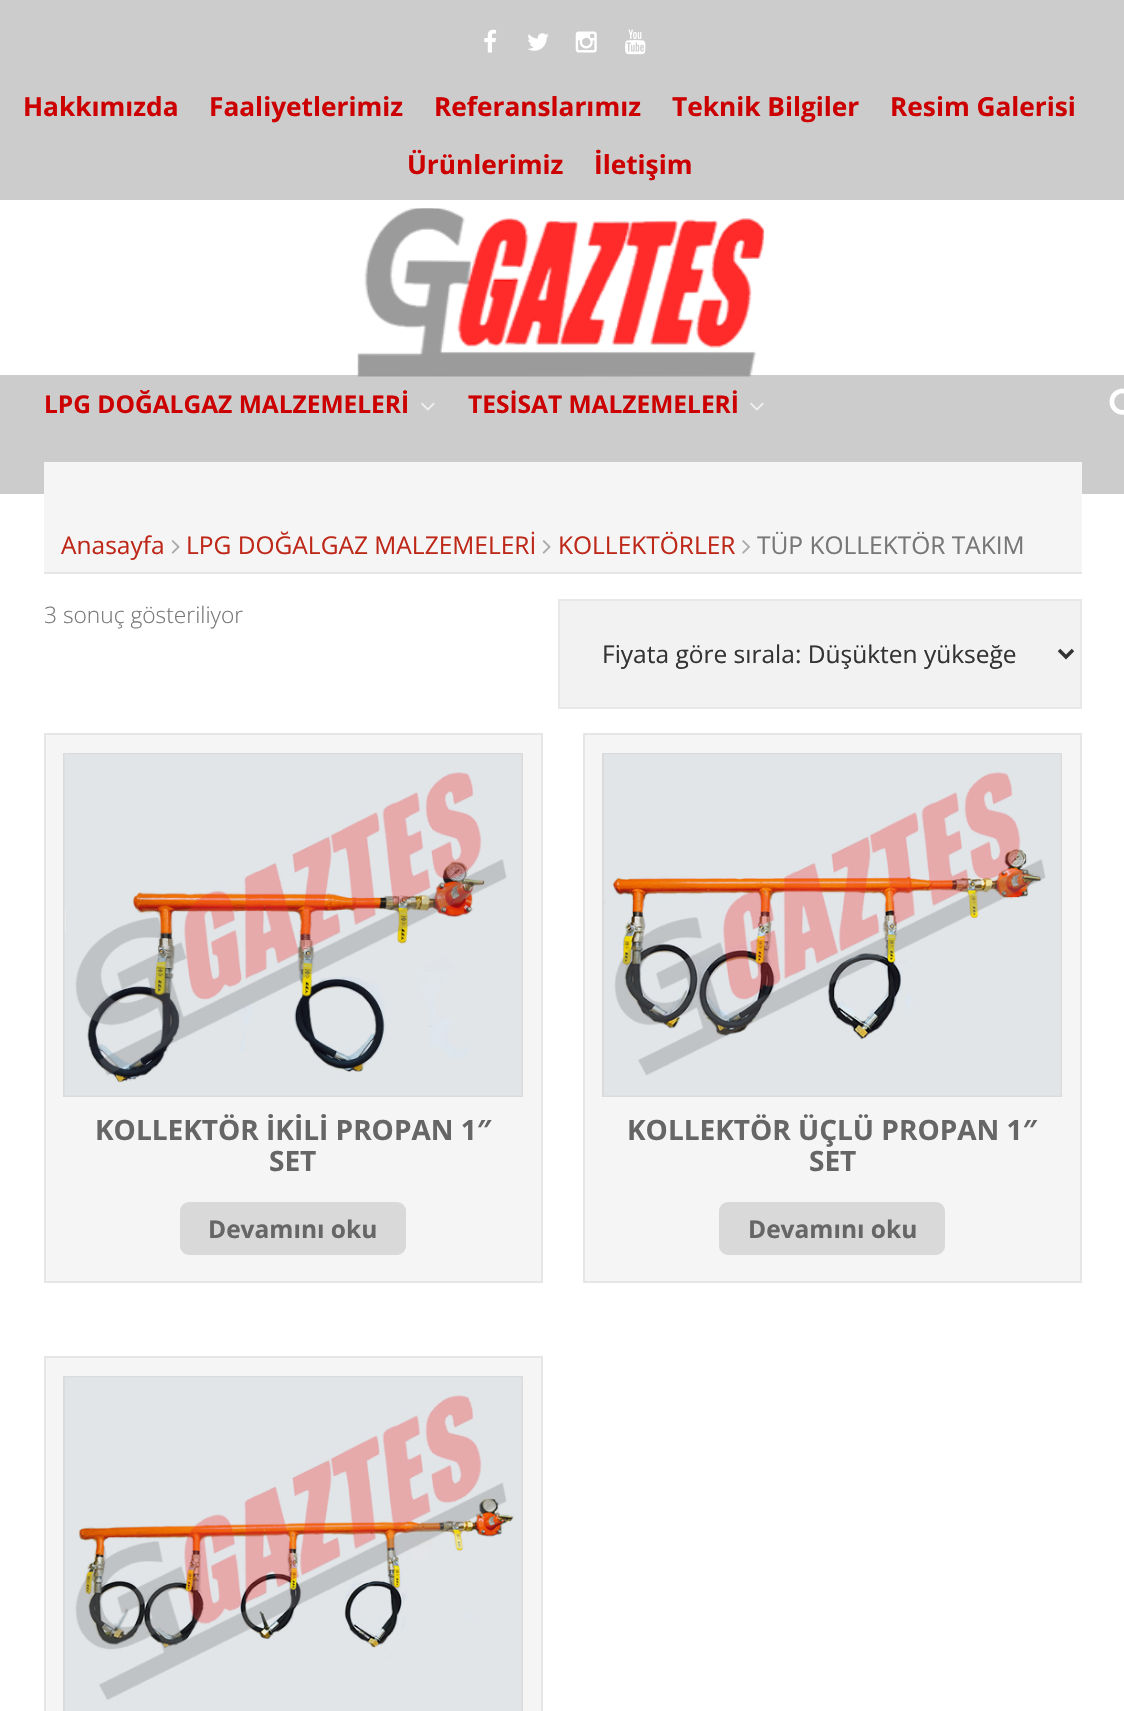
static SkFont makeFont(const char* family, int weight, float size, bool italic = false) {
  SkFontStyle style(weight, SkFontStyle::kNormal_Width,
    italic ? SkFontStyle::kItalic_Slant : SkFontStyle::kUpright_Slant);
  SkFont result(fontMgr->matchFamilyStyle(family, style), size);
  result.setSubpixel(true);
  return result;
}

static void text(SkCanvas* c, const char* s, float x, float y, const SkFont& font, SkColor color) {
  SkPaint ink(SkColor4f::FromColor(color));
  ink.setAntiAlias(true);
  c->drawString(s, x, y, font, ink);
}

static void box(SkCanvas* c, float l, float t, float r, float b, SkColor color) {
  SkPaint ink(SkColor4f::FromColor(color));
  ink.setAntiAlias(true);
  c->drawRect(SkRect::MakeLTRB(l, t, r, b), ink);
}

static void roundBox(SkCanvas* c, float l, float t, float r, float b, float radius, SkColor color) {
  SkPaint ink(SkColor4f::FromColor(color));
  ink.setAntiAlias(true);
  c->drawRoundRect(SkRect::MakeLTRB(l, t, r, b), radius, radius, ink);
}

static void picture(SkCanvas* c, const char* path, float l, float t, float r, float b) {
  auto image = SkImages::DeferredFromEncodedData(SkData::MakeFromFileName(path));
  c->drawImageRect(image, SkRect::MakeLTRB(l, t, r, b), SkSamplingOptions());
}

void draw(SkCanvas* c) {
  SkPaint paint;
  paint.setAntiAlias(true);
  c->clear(0xffffffff);
  box(c, 0, 0, 1124, 200, 0xffcccccc);
  picture(c, "img_01.png", 484, 29, 497, 53);
  picture(c, "img_02.png", 527, 33, 549, 51);
  picture(c, "img_03.png", 575, 31, 597, 53);
  picture(c, "img_04.png", 625, 29, 646, 55);
  SkFont face1 = makeFont("Open Sans", 700, 26.25f);
  text(c, "Hakkımızda", 23, 116, face1, 0xffcc0000);
  text(c, "Faaliyetlerimiz", 209, 116, face1, 0xffcc0000);
  text(c, "Referanslarımız", 434, 116, face1, 0xffcc0000);
  text(c, "Teknik Bilgiler", 672, 116, face1, 0xffcc0000);
  text(c, "Resim Galerisi", 890, 116, face1, 0xffcc0000);
  text(c, "Ürünlerimiz", 407, 174, face1, 0xffcc0000);
  text(c, "İletişim", 594, 174, face1, 0xffcc0000);
  box(c, 0, 375, 1124, 494, 0xffcccccc);
  picture(c, "img_05.png", 357, 208, 765, 377);
  SkFont face2 = makeFont("Open Sans", 700, 24.5f);
  text(c, "LPG DOĞALGAZ MALZEMELERİ", 44, 413, face2, 0xffcc0000);
  picture(c, "img_06.png", 421, 402, 435, 411);
  text(c, "TESİSAT MALZEMELERİ", 468, 413, face2, 0xffcc0000);
  picture(c, "img_06.png", 750, 402, 764, 411);
  picture(c, "img_07.png", 1109, 388, 1124, 415);
  box(c, 44, 462, 1082, 572, 0xfff5f5f5);
  box(c, 44, 572, 1082, 574, 0xffe6e6e6);
  SkFont face3 = makeFont("Open Sans", 400, 24.5f);
  text(c, "Anasayfa", 61, 554, face3, 0xffbe2819);
  picture(c, "img_08.png", 171, 540, 180, 554);
  text(c, "LPG DOĞALGAZ MALZEMELERİ", 186, 554, face3, 0xffbe2819);
  picture(c, "img_08.png", 542, 540, 551, 554);
  text(c, "KOLLEKTÖRLER", 558, 554, face3, 0xffbe2819);
  picture(c, "img_09.png", 742, 540, 750, 554);
  text(c, "TÜP KOLLEKTÖR TAKIM", 757, 554, face3, 0xff777777);
  SkFont face4 = makeFont("Open Sans", 300, 22.75f);
  text(c, "3 sonuç gösteriliyor", 44, 623, face4, 0xff777777);
  paint.setColor(0xfff2f2f2);
  c->drawRect(SkRect::MakeLTRB(559, 600, 1081, 708), paint);
  paint.setStyle(SkPaint::kStroke_Style);
  paint.setStrokeWidth(2);
  paint.setColor(0xffe8e8e8);
  c->drawRect(SkRect::MakeLTRB(559, 600, 1081, 708), paint);
  paint.setStrokeWidth(3.5f);
  paint.setColor(0xff333333);
  c->drawPath(SkPathBuilder().moveTo(1059, 650).lineTo(1066, 657).lineTo(1073, 650).detach(), paint);
  text(c, "Fiyata göre sırala: Düşükten yükseğe", 602, 663, face3, 0xff333333);
  paint.setStyle(SkPaint::kFill_Style);
  paint.setColor(0xfff5f5f5);
  c->drawRect(SkRect::MakeLTRB(45, 734, 542, 1282), paint);
  paint.setStyle(SkPaint::kStroke_Style);
  paint.setStrokeWidth(2);
  paint.setColor(0xffe6e6e6);
  c->drawRect(SkRect::MakeLTRB(45, 734, 542, 1282), paint);
  paint.setColor(0xffdbdbdb);
  c->drawRect(SkRect::MakeLTRB(64, 754, 522, 1096), paint);
  picture(c, "img_10.png", 64, 754, 522, 1096);
  SkFont face5 = makeFont("Open Sans", 700, 28);
  text(c, "KOLLEKTÖR İKİLİ PROPAN 1″", 95, 1140, face5, 0xff666666);
  text(c, "SET", 269, 1171, face5, 0xff666666);
  roundBox(c, 180, 1202, 406, 1255, 9, 0xffd9d9d9);
  text(c, "Devamını oku", 208, 1238, face2, 0xff666666);
  paint.setStyle(SkPaint::kFill_Style);
  paint.setColor(0xfff5f5f5);
  c->drawRect(SkRect::MakeLTRB(584, 734, 1081, 1282), paint);
  paint.setStyle(SkPaint::kStroke_Style);
  paint.setColor(0xffe6e6e6);
  c->drawRect(SkRect::MakeLTRB(584, 734, 1081, 1282), paint);
  paint.setColor(0xffdbdbdb);
  c->drawRect(SkRect::MakeLTRB(603, 754, 1061, 1096), paint);
  picture(c, "img_11.png", 604, 754, 1061, 1096);
  text(c, "KOLLEKTÖR ÜÇLÜ PROPAN 1″", 627, 1140, face5, 0xff666666);
  text(c, "SET", 809, 1171, face5, 0xff666666);
  roundBox(c, 719, 1202, 945, 1255, 9, 0xffd9d9d9);
  text(c, "Devamını oku", 748, 1238, face2, 0xff666666);
  paint.setStyle(SkPaint::kFill_Style);
  paint.setColor(0xfff5f5f5);
  c->drawRect(SkRect::MakeLTRB(45, 1357, 542, 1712), paint);
  paint.setStyle(SkPaint::kStroke_Style);
  paint.setColor(0xffe6e6e6);
  c->drawRect(SkRect::MakeLTRB(45, 1357, 542, 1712), paint);
  paint.setColor(0xffdbdbdb);
  c->drawRect(SkRect::MakeLTRB(64, 1377, 522, 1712), paint);
  picture(c, "img_12.png", 65, 1377, 522, 1711);
}
